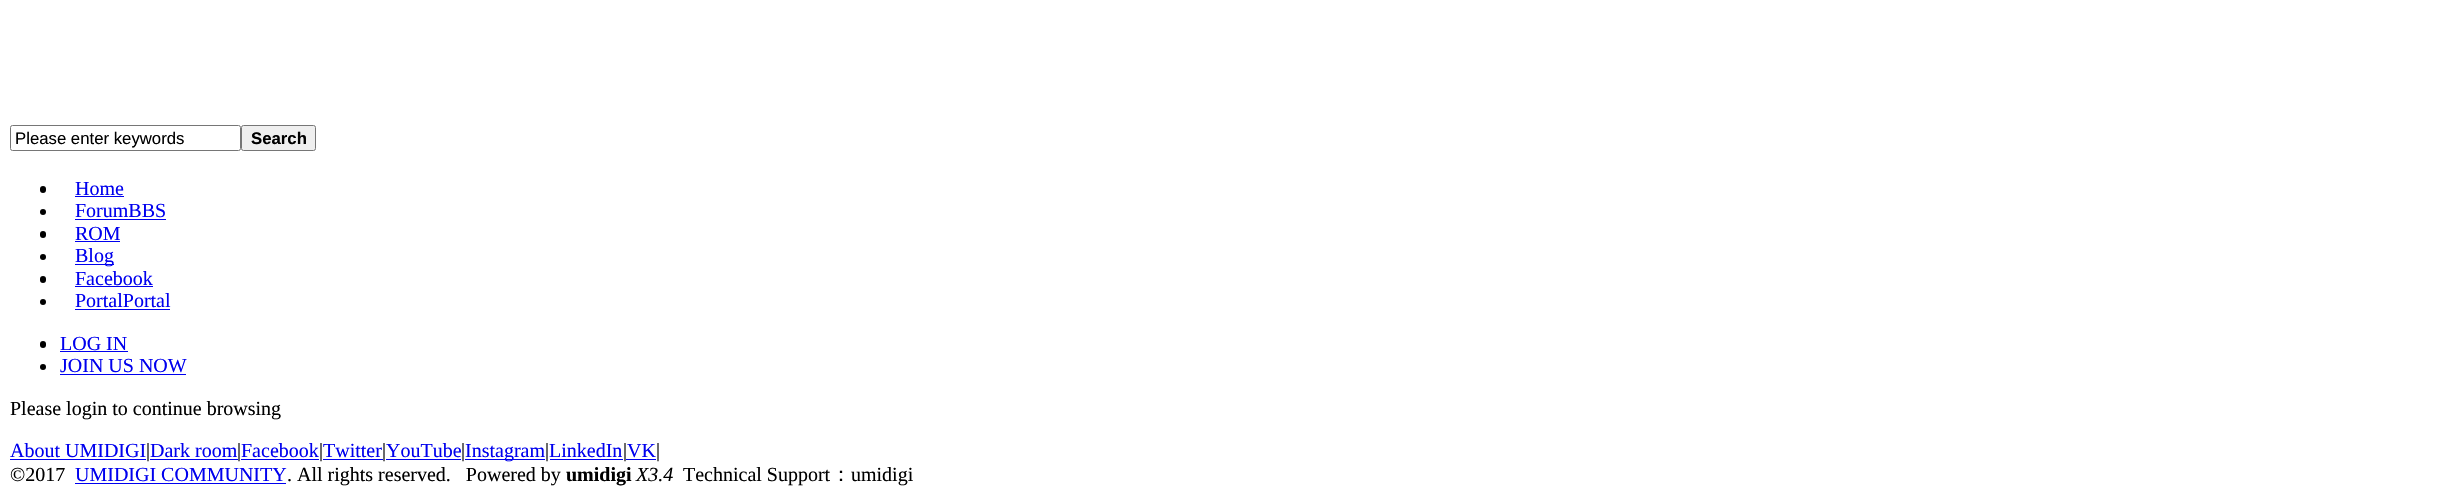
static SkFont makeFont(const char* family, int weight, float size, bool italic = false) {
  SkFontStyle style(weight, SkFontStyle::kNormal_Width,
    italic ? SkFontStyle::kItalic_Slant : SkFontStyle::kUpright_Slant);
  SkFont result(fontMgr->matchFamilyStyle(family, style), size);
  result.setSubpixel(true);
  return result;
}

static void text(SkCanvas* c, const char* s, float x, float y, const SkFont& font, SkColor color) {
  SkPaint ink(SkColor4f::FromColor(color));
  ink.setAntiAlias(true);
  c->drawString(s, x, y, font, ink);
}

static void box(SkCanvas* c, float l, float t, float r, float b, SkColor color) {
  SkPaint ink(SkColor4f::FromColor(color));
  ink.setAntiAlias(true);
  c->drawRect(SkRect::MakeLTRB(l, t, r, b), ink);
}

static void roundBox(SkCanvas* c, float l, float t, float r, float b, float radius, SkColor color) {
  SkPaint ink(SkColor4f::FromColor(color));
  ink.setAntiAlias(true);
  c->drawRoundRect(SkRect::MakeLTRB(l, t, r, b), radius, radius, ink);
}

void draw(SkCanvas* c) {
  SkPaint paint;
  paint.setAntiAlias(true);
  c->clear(0xffffffff);
  paint.setStyle(SkPaint::kStroke_Style);
  paint.setStrokeWidth(1);
  paint.setColor(0xff767676);
  c->drawRoundRect(SkRect::MakeLTRB(10.5f, 125.5f, 240.5f, 150.5f), 2, 2, paint);
  SkFont face1 = makeFont("Liberation Sans", 400, 16.75f);
  text(c, "Please enter keywords", 15, 144, face1, 0xff000000);
  paint.setStyle(SkPaint::kFill_Style);
  paint.setColor(0xffefefef);
  c->drawRoundRect(SkRect::MakeLTRB(241.5f, 125.5f, 315.5f, 150.5f), 2, 2, paint);
  paint.setStyle(SkPaint::kStroke_Style);
  paint.setColor(0xff767676);
  c->drawRoundRect(SkRect::MakeLTRB(241.5f, 125.5f, 315.5f, 150.5f), 2, 2, paint);
  SkFont face2 = makeFont("Liberation Sans", 700, 16.75f);
  text(c, "Search", 251, 144, face2, 0xff000000);
  roundBox(c, 40, 186, 46, 193, 3, 0xff000000);
  SkFont face3 = makeFont("Liberation Serif", 400, 20);
  text(c, "Home", 75, 195, face3, 0xff0000ee);
  box(c, 75, 196, 124, 197, 0xff0000ee);
  paint.setStyle(SkPaint::kFill_Style);
  paint.setColor(0xff000000);
  c->drawCircle(43, 212, 3, paint);
  text(c, "ForumBBS", 75, 217, face3, 0xff0000ee);
  box(c, 75, 219, 166, 220, 0xff0000ee);
  roundBox(c, 40, 231, 46, 238, 3, 0xff000000);
  text(c, "ROM", 75, 240, face3, 0xff0000ee);
  box(c, 75, 241, 120, 242, 0xff0000ee);
  c->drawCircle(43, 257, 3, paint);
  box(c, 75, 264, 114, 265, 0xff0000ee);
  text(c, "Blog", 75, 262, face3, 0xff0000ee);
  roundBox(c, 40, 276, 46, 283, 3, 0xff000000);
  text(c, "Facebook", 75, 285, face3, 0xff0000ee);
  box(c, 75, 286, 153, 287, 0xff0000ee);
  c->drawCircle(43, 302, 3, paint);
  text(c, "PortalPortal", 75, 307, face3, 0xff0000ee);
  box(c, 75, 309, 170, 310, 0xff0000ee);
  roundBox(c, 40, 341, 46, 348, 3, 0xff000000);
  text(c, "LOG IN", 60, 350, face3, 0xff0000ee);
  box(c, 60, 351, 128, 352, 0xff0000ee);
  c->drawCircle(43, 367, 3, paint);
  text(c, "JOIN US NOW", 60, 372, face3, 0xff0000ee);
  box(c, 60, 374, 186, 375, 0xff0000ee);
  text(c, "Please login to continue browsing", 10, 415, face3, 0xff000000);
  text(c, "About UMIDIGI", 10, 457, face3, 0xff0000ee);
  box(c, 10, 459, 146, 460, 0xff0000ee);
  text(c, "|", 146, 457, face3, 0xff000000);
  text(c, "Dark room", 150, 457, face3, 0xff0000ee);
  box(c, 150, 459, 238, 460, 0xff0000ee);
  text(c, "|", 237, 457, face3, 0xff000000);
  text(c, "Facebook", 241, 457, face3, 0xff0000ee);
  box(c, 241, 459, 319, 460, 0xff0000ee);
  text(c, "|", 319, 457, face3, 0xff000000);
  text(c, "Twitter", 323, 457, face3, 0xff0000ee);
  box(c, 323, 459, 383, 460, 0xff0000ee);
  text(c, "|", 382, 457, face3, 0xff000000);
  text(c, "YouTube", 386, 457, face3, 0xff0000ee);
  box(c, 386, 459, 461, 460, 0xff0000ee);
  text(c, "|", 461, 457, face3, 0xff000000);
  box(c, 465, 459, 545, 460, 0xff0000ee);
  text(c, "Instagram", 465, 457, face3, 0xff0000ee);
  text(c, "|", 545, 457, face3, 0xff000000);
  text(c, "LinkedIn", 549, 457, face3, 0xff0000ee);
  box(c, 550, 459, 623, 460, 0xff0000ee);
  text(c, "|", 623, 457, face3, 0xff000000);
  text(c, "VK", 627, 457, face3, 0xff0000ee);
  box(c, 626, 459, 656, 460, 0xff0000ee);
  text(c, "|", 656, 457, face3, 0xff000000);
  text(c, "©2017", 10, 481, face3, 0xff000000);
  text(c, "UMIDIGI COMMUNITY", 75, 481, face3, 0xff0000ee);
  box(c, 75, 483, 286, 484, 0xff0000ee);
  text(c, ". All rights reserved.   Powered by", 287, 481, face3, 0xff000000);
  SkFont face4 = makeFont("Liberation Serif", 700, 20);
  text(c, "umidigi", 566, 481, face4, 0xff000000);
  SkFont face5 = makeFont("Liberation Serif", 400, 20, true);
  text(c, "X3.4", 636, 481, face5, 0xff000000);
  text(c, "Technical Support", 683, 481, face3, 0xff000000);
  SkFont face6 = makeFont("WenQuanYi Zen Hei", 500, 20);
  text(c, "：", 831, 481, face6, 0xff000000);
  text(c, "umidigi", 851, 481, face3, 0xff000000);
}
